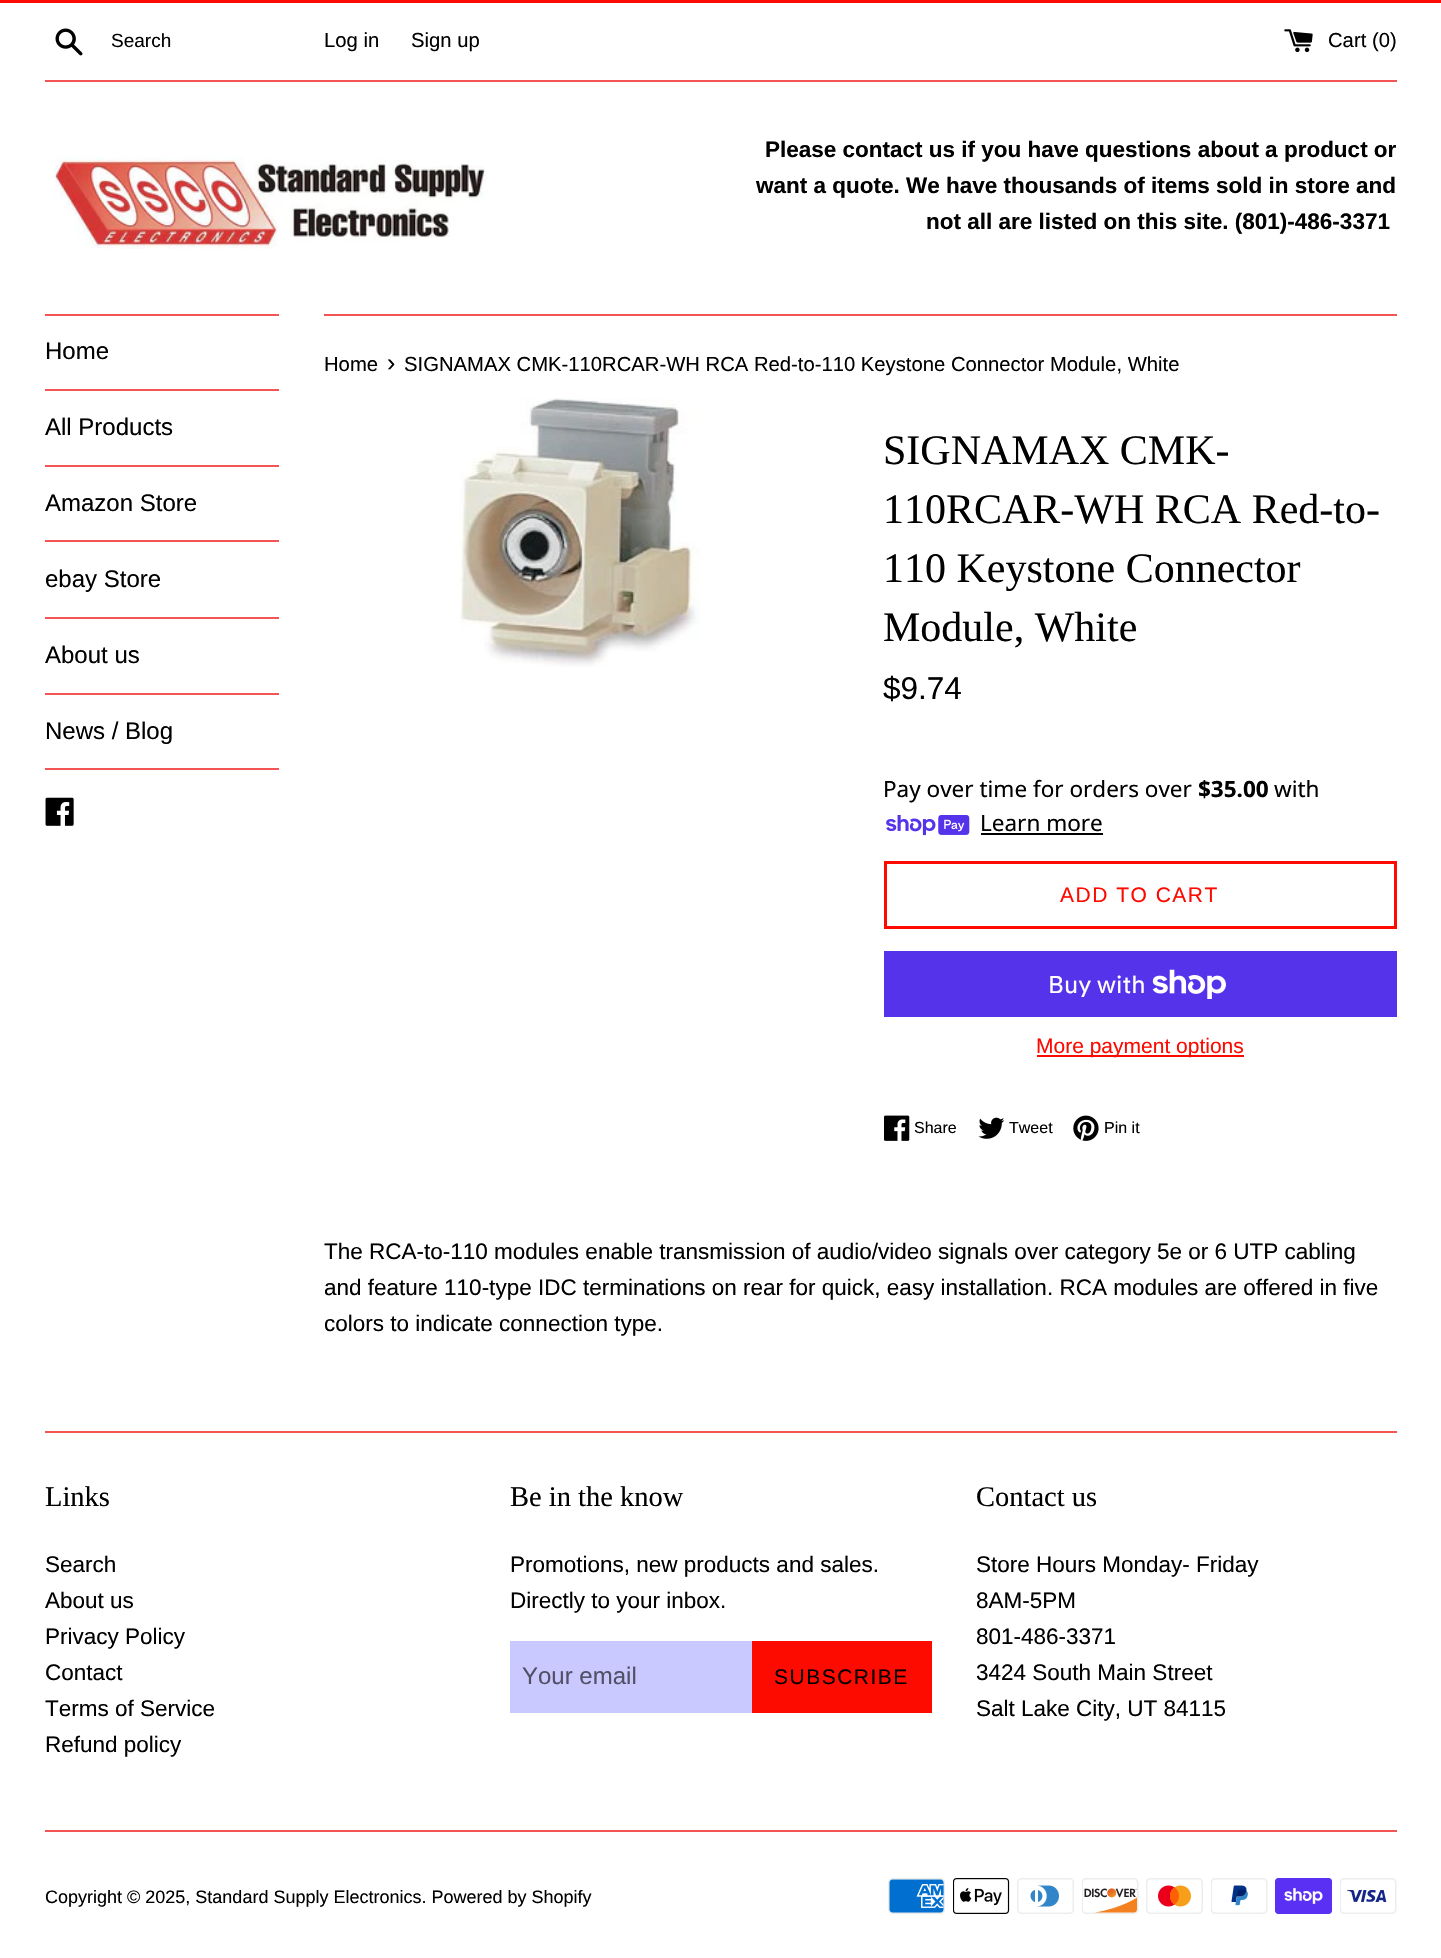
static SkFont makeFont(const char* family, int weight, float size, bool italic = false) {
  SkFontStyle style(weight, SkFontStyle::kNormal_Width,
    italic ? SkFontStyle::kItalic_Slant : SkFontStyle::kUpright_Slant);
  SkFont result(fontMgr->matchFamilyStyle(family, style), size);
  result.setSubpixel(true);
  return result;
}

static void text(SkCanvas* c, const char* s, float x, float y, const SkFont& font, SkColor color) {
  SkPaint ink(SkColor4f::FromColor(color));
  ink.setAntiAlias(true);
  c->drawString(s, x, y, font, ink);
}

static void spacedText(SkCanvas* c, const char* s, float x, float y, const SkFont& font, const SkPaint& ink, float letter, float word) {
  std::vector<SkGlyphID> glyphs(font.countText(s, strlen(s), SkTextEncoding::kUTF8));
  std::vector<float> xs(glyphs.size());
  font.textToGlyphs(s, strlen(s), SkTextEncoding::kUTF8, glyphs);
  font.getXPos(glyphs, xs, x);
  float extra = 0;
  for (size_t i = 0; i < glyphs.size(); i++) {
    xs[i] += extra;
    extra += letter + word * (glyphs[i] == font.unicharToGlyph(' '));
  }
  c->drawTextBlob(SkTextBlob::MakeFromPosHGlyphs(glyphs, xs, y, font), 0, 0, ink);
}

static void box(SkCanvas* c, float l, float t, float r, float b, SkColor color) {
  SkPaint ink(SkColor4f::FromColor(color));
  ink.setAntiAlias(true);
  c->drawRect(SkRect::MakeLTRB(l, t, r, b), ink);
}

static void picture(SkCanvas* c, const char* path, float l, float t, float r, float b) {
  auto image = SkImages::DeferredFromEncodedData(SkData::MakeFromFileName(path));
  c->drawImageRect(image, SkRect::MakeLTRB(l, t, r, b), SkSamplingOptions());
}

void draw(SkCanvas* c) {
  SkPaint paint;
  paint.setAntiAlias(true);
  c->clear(0xffffffff);
  box(c, 0, 0, 1441, 3, 0xfffd0a00);
  picture(c, "img_01.png", 55, 28, 83, 56);
  SkFont face1 = makeFont("Liberation Sans", 400, 19);
  text(c, "Search", 111, 47, face1, 0xff000000);
  SkFont face2 = makeFont("Liberation Sans", 400, 20.25f);
  text(c, "Log in", 324, 47, face2, 0xff000000);
  text(c, "Sign up", 411, 47, face2, 0xff000000);
  picture(c, "img_02.png", 1284, 29, 1313, 53);
  text(c, "Cart (0)", 1328, 47, face2, 0xff000000);
  box(c, 45, 80, 1397, 82, 0xfff35555);
  picture(c, "img_03.png", 54, 156, 487, 249);
  SkFont face3 = makeFont("Liberation Sans", 700, 22.5f);
  text(c, "Please contact us if you have questions about a product or", 765, 157, face3, 0xff000000);
  text(c, "want a quote. We have thousands of items sold in store and", 756, 193, face3, 0xff000000);
  text(c, "not all are listed on this site. (801)-486-3371", 926, 229, face3, 0xff000000);
  box(c, 45, 314, 279, 316, 0xfff35555);
  box(c, 45, 389, 279, 391, 0xfff35555);
  SkFont face4 = makeFont("Liberation Sans", 400, 24);
  text(c, "Home", 45, 359, face4, 0xff000000);
  box(c, 45, 465, 279, 467, 0xfff35555);
  text(c, "All Products", 45, 435, face4, 0xff000000);
  box(c, 45, 540, 279, 542, 0xfff35555);
  text(c, "Amazon Store", 45, 511, face4, 0xff000000);
  box(c, 45, 617, 279, 619, 0xfff35555);
  text(c, "ebay Store", 45, 587, face4, 0xff000000);
  box(c, 45, 693, 279, 695, 0xfff35555);
  text(c, "About us", 45, 663, face4, 0xff000000);
  box(c, 45, 768, 279, 770, 0xfff35555);
  text(c, "News / Blog", 45, 739, face4, 0xff000000);
  picture(c, "img_04.png", 45, 797, 74, 826);
  box(c, 324, 314, 1397, 316, 0xfff35555);
  text(c, "Home", 324, 371, face2, 0xff000000);
  SkFont face5 = makeFont("Liberation Sans", 400, 25);
  text(c, "›", 387, 371, face5, 0xff000000);
  text(c, "SIGNAMAX CMK-110RCAR-WH RCA Red-to-110 Keystone Connector Module, White", 404, 371, face2, 0xff000000);
  picture(c, "img_05.png", 460, 398, 701, 667);
  SkFont face6 = makeFont("Liberation Serif", 400, 42);
  text(c, "SIGNAMAX CMK-", 883, 464, face6, 0xff000000);
  text(c, "110RCAR-WH RCA Red-to-", 883, 523, face6, 0xff000000);
  text(c, "110 Keystone Connector", 883, 582, face6, 0xff000000);
  text(c, "Module, White", 883, 641, face6, 0xff000000);
  SkFont face7 = makeFont("Liberation Sans", 400, 31.5f);
  text(c, "$9.74", 883, 699, face7, 0xff000000);
  SkFont face8 = makeFont("Noto Sans", 400, 22.5f);
  text(c, "Pay over time for orders over", 883, 797, face8, 0xff000000);
  SkFont face9 = makeFont("Noto Sans", 700, 22.5f);
  text(c, "$35.00", 1198, 797, face9, 0xff000000);
  text(c, "with", 1274, 797, face8, 0xff000000);
  picture(c, "img_06.png", 886, 815, 970, 836);
  text(c, "Learn more", 980, 831, face8, 0xff000000);
  box(c, 981, 833, 1103, 835, 0xff000000);
  paint.setStyle(SkPaint::kStroke_Style);
  paint.setStrokeWidth(3);
  paint.setColor(0xfffd0a00);
  c->drawRect(SkRect::MakeLTRB(885.5f, 862.5f, 1395.5f, 927.5f), paint);
  SkFont face10 = makeFont("Liberation Sans", 400, 21);
  paint.setStyle(SkPaint::kFill_Style);
  spacedText(c, "ADD TO CART", 1060, 902, face10, paint, 1.5f, 0);
  box(c, 884, 951, 1397, 1017, 0xff5433eb);
  SkFont face11 = makeFont("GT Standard", 400, 24);
  text(c, "Buy with", 1048, 993, face11, 0xffffffff);
  picture(c, "img_07.png", 1152, 969, 1226, 999);
  box(c, 1037, 1055, 1244, 1057, 0xfffd0a00);
  text(c, "More payment options", 1036, 1053, face10, 0xfffd0a00);
  picture(c, "img_08.png", 884, 1115, 910, 1141);
  SkFont face12 = makeFont("Liberation Sans", 400, 16);
  text(c, "Share", 914, 1133, face12, 0xff000000);
  picture(c, "img_09.png", 978, 1117, 1005, 1139);
  text(c, "Tweet", 1009, 1133, face12, 0xff000000);
  picture(c, "img_10.png", 1073, 1115, 1099, 1141);
  text(c, "Pin it", 1104, 1133, face12, 0xff000000);
  SkFont face13 = makeFont("Liberation Sans", 400, 22.5f);
  text(c, "The RCA-to-110 modules enable transmission of audio/video signals over category 5e or 6 UTP cabling", 324, 1259, face13, 0xff000000);
  text(c, "and feature 110-type IDC terminations on rear for quick, easy installation. RCA modules are offered in five", 324, 1295, face13, 0xff000000);
  text(c, "colors to indicate connection type.", 324, 1331, face13, 0xff000000);
  box(c, 45, 1431, 1397, 1433, 0xfff35555);
  SkFont face14 = makeFont("Liberation Serif", 400, 28.5f);
  text(c, "Links", 45, 1506, face14, 0xff000000);
  text(c, "Search", 45, 1572, face13, 0xff000000);
  text(c, "About us", 45, 1608, face13, 0xff000000);
  text(c, "Privacy Policy", 45, 1644, face13, 0xff000000);
  text(c, "Contact", 45, 1680, face13, 0xff000000);
  text(c, "Terms of Service", 45, 1716, face13, 0xff000000);
  text(c, "Refund policy", 45, 1752, face13, 0xff000000);
  text(c, "Be in the know", 510, 1506, face14, 0xff000000);
  text(c, "Promotions, new products and sales.", 510, 1572, face13, 0xff000000);
  text(c, "Directly to your inbox.", 510, 1608, face13, 0xff000000);
  box(c, 510, 1641, 752, 1713, 0xffcac9ff);
  text(c, "Your email", 522, 1684, face4, 0xff515066);
  box(c, 752, 1641, 932, 1713, 0xfffd0a00);
  paint.setColor(0xff000000);
  spacedText(c, "SUBSCRIBE", 774, 1684, face10, paint, 1.5f, 0);
  text(c, "Contact us", 976, 1506, face14, 0xff000000);
  text(c, "Store Hours Monday- Friday", 976, 1572, face13, 0xff000000);
  text(c, "8AM-5PM", 976, 1608, face13, 0xff000000);
  text(c, "801-486-3371", 976, 1644, face13, 0xff000000);
  text(c, "3424 South Main Street", 976, 1680, face13, 0xff000000);
  text(c, "Salt Lake City, UT 84115", 976, 1716, face13, 0xff000000);
  box(c, 45, 1830, 1397, 1832, 0xfff35555);
  SkFont face15 = makeFont("Liberation Sans", 400, 18);
  text(c, "Copyright © 2025, Standard Supply Electronics. Powered by Shopify", 45, 1903, face15, 0xff000000);
  picture(c, "img_11.png", 888, 1878, 945, 1914);
  picture(c, "img_12.png", 953, 1878, 1010, 1914);
  picture(c, "img_13.png", 1017, 1878, 1074, 1914);
  picture(c, "img_14.png", 1082, 1878, 1139, 1914);
  picture(c, "img_15.png", 1146, 1878, 1203, 1914);
  picture(c, "img_16.png", 1211, 1878, 1268, 1914);
  picture(c, "img_17.png", 1275, 1878, 1332, 1914);
  picture(c, "img_18.png", 1340, 1878, 1397, 1914);
}
